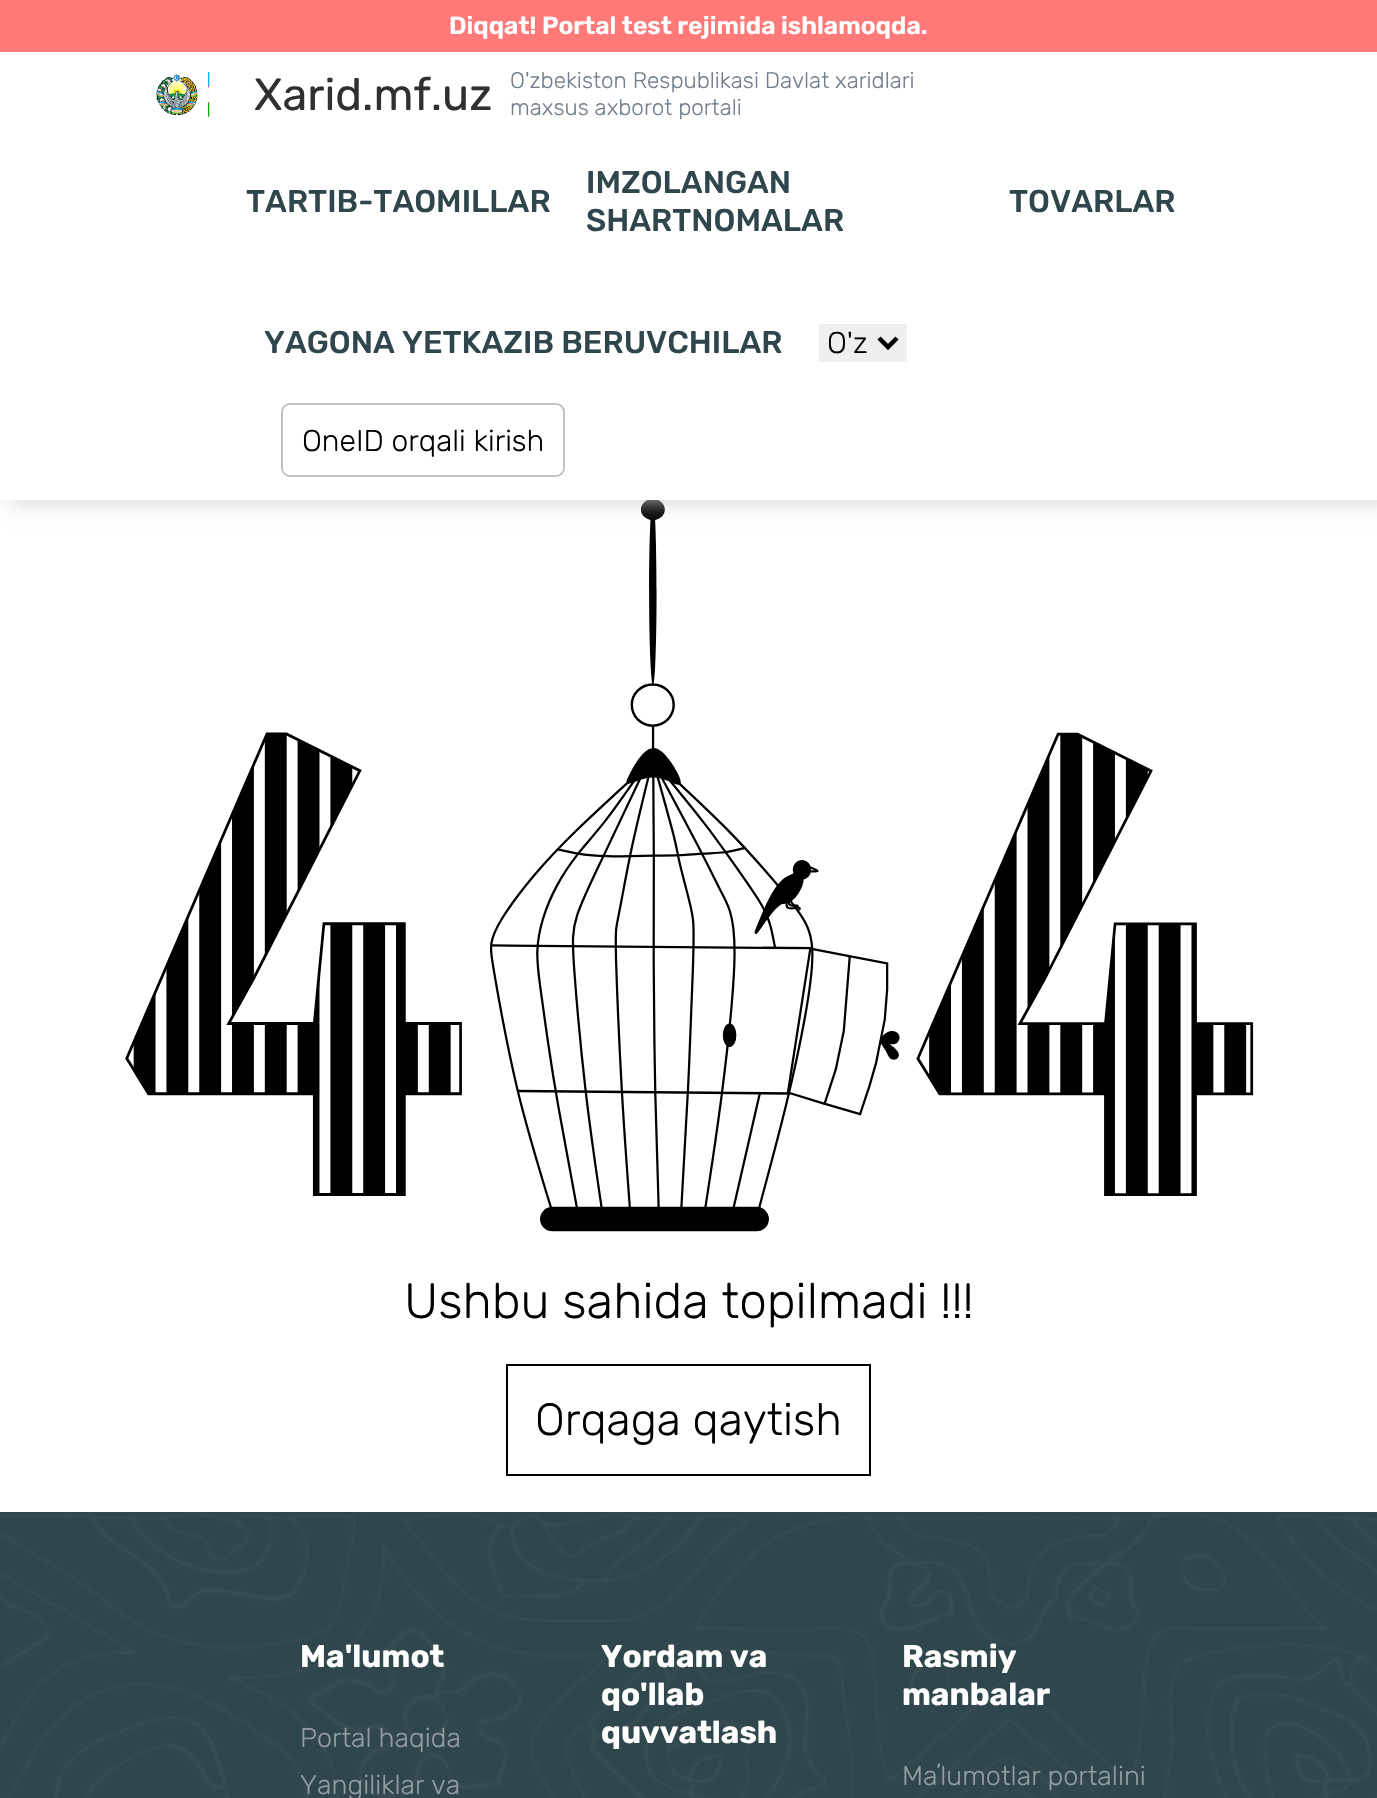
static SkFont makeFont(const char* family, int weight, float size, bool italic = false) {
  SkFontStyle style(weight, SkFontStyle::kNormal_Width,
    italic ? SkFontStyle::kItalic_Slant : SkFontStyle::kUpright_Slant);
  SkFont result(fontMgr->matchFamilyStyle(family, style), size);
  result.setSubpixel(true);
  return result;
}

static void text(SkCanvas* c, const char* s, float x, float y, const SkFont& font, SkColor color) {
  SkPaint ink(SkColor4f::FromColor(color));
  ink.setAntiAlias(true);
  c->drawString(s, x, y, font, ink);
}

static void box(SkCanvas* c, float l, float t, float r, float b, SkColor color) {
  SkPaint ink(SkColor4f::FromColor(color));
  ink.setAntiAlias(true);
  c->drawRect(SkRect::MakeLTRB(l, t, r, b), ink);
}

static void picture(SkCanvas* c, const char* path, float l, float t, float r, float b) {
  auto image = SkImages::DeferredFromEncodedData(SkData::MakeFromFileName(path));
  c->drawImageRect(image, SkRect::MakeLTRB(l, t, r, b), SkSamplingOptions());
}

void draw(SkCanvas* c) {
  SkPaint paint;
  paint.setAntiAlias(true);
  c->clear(0xffffffff);
  picture(c, "img_02.png", 125, 500, 1254, 1232);
  paint.setColor(0xffcccccc);
  paint.setMaskFilter(SkMaskFilter::MakeBlur(kNormal_SkBlurStyle, 11));
  c->drawRect(SkRect::MakeLTRB(11, 0, 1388, 500), paint);
  paint.setMaskFilter(nullptr);
  box(c, 0, 0, 1377, 52, 0xffff7979);
  SkFont face1 = makeFont("Rubik", 600, 24.75f);
  text(c, "Diqqat! Portal test rejimida ishlamoqda.", 449, 34, face1, 0xffffffff);
  box(c, 0, 52, 1377, 500, 0xffffffff);
  picture(c, "img_01.png", 156, 72, 210, 117);
  SkFont face2 = makeFont("Rubik", 400, 45);
  text(c, "Xarid.mf.uz", 254, 110, face2, 0xff303030);
  SkFont face3 = makeFont("Rubik", 300, 22.5f);
  text(c, "O'zbekiston Respublikasi Davlat xaridlari", 510, 88, face3, 0xff707e8d);
  text(c, "maxsus axborot portali", 510, 115, face3, 0xff707e8d);
  SkFont face4 = makeFont("Rubik", 500, 31.5f);
  text(c, "TARTIB-TAOMILLAR", 246, 212, face4, 0xff2f464c);
  text(c, "IMZOLANGAN", 586, 193, face4, 0xff2f464c);
  text(c, "SHARTNOMALAR", 586, 231, face4, 0xff2f464c);
  text(c, "TOVARLAR", 1009, 212, face4, 0xff2f464c);
  text(c, "YAGONA YETKAZIB BERUVCHILAR", 264, 353, face4, 0xff2f464c);
  box(c, 819, 324, 907, 362, 0xffefefef);
  paint.setStyle(SkPaint::kStroke_Style);
  paint.setStrokeWidth(4.5f);
  paint.setColor(0xff000000);
  c->drawPath(SkPathBuilder().moveTo(879, 338).lineTo(888, 347).lineTo(897, 338).detach(), paint);
  SkFont face5 = makeFont("Rubik", 300, 30);
  text(c, "O'z", 827, 353, face5, 0xff000000);
  paint.setStrokeWidth(2);
  paint.setColor(0xffbdc4c7);
  c->drawRoundRect(SkRect::MakeLTRB(282, 404, 564, 476), 8, 8, paint);
  text(c, "OneID orqali kirish", 302, 451, face5, 0xff000000);
  SkFont face6 = makeFont("Rubik", 300, 49.5f);
  text(c, "Ushbu sahida topilmadi !!!", 404, 1318, face6, 0xff000000);
  paint.setColor(0xff000000);
  c->drawRect(SkRect::MakeLTRB(507, 1365, 870, 1475), paint);
  SkFont face7 = makeFont("Rubik", 300, 45);
  text(c, "Orqaga qaytish", 535, 1435, face7, 0xff000000);
  box(c, 0, 1512, 1377, 1798, 0xff2f464c);
  picture(c, "img_03.png", 0, 1512, 1377, 1798);
  SkFont face8 = makeFont("Rubik", 700, 31.5f);
  text(c, "Ma'lumot", 300, 1667, face8, 0xffffffff);
  SkFont face9 = makeFont("Rubik", 300, 27);
  text(c, "Portal haqida", 300, 1747, face9, 0xff919da1);
  text(c, "Yangiliklar va", 300, 1794, face9, 0xff919da1);
  text(c, "Yordam va", 601, 1667, face8, 0xffffffff);
  text(c, "qo'llab", 601, 1705, face8, 0xffffffff);
  text(c, "quvvatlash", 601, 1743, face8, 0xffffffff);
  text(c, "Rasmiy", 902, 1667, face8, 0xffffffff);
  text(c, "manbalar", 902, 1705, face8, 0xffffffff);
  text(c, "Maʼlumotlar portalini", 902, 1785, face9, 0xff919da1);
}
